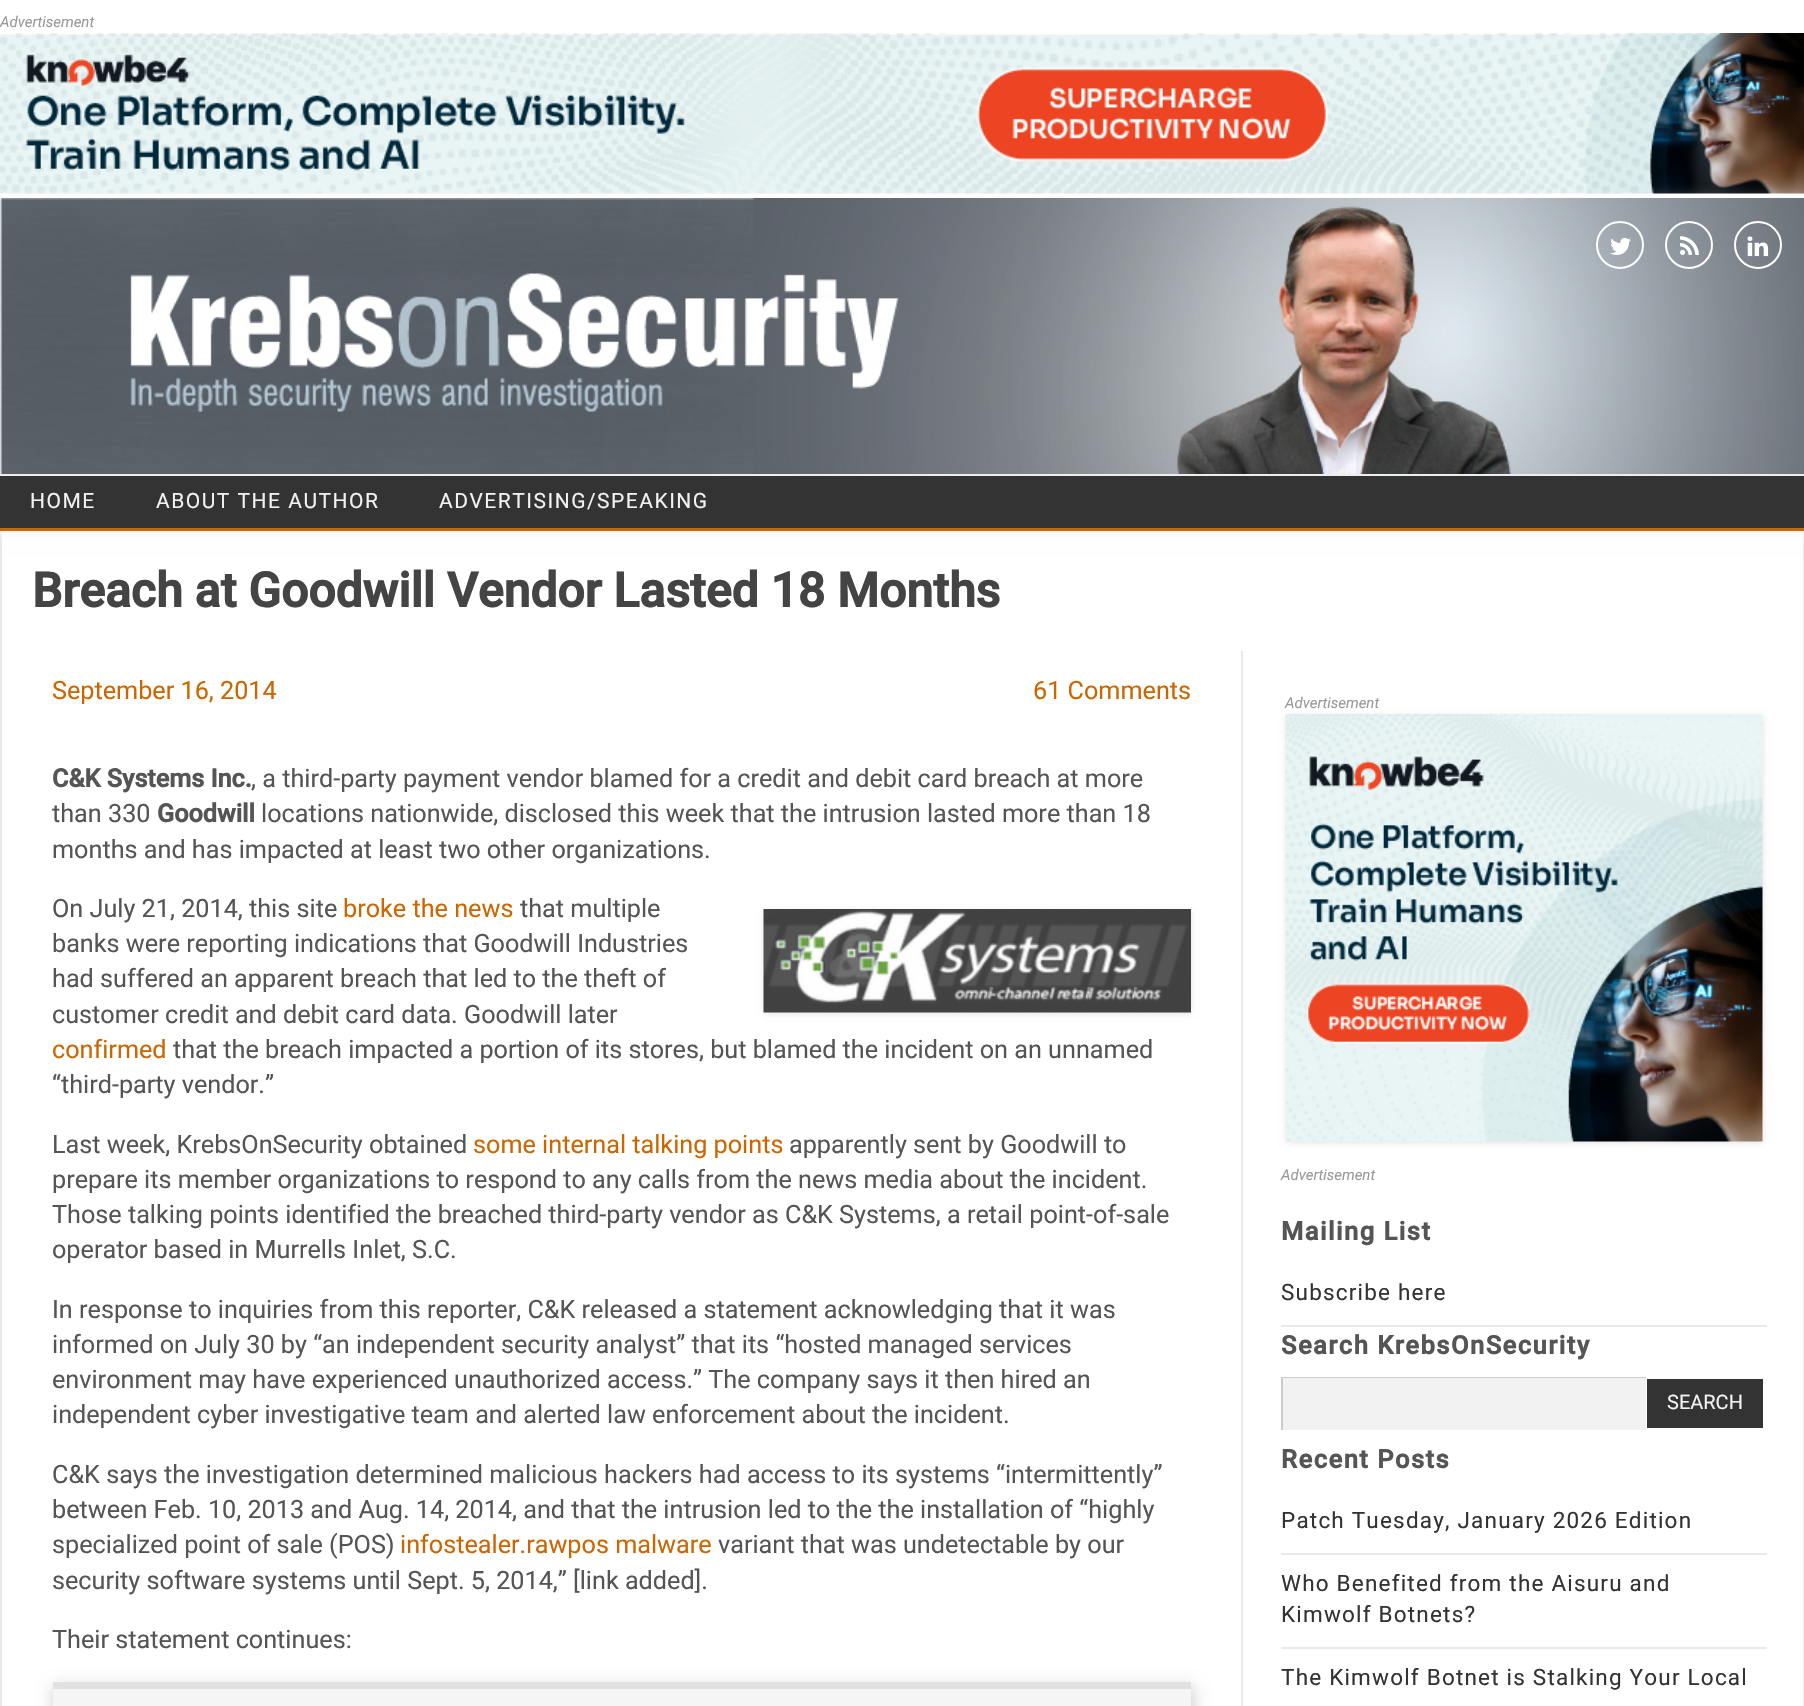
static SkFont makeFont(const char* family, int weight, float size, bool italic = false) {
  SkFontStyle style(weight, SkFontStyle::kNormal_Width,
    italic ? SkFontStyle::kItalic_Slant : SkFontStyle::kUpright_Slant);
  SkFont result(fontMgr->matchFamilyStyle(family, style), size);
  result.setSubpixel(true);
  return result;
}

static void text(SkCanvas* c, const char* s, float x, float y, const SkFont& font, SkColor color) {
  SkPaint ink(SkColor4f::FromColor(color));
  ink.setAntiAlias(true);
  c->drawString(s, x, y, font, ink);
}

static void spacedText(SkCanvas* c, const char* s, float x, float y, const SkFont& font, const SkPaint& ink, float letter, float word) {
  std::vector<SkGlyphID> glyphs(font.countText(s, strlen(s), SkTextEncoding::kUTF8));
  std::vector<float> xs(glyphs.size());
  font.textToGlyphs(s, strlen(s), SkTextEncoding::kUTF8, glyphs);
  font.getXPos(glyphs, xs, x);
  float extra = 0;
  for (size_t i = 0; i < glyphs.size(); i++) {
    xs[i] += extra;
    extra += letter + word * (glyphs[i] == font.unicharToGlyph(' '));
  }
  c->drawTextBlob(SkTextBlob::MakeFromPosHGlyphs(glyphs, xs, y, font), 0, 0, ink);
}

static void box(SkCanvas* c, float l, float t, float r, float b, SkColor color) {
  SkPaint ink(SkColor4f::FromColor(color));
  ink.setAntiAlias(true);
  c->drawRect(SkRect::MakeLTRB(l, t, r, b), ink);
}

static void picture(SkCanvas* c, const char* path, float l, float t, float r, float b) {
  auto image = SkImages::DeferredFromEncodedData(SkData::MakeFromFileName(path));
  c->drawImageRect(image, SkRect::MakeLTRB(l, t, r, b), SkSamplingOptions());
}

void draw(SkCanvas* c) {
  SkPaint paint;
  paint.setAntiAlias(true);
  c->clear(0xffffffff);
  SkFont face1 = makeFont("Roboto", 400, 15, true);
  text(c, "Advertisement", 0, 27, face1, 0xff999999);
  picture(c, "img_01.png", 0, 33, 1804, 194);
  paint.setColor(0xfff8f8f8);
  paint.setMaskFilter(SkMaskFilter::MakeBlur(kNormal_SkBlurStyle, 7));
  c->drawRect(SkRect::MakeLTRB(0, 200, 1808, 203), paint);
  paint.setMaskFilter(nullptr);
  paint.setStyle(SkPaint::kStroke_Style);
  paint.setStrokeWidth(2);
  paint.setColor(0xffe9e9e9);
  c->drawRect(SkRect::MakeLTRB(1, 532, 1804, 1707), paint);
  paint.setStyle(SkPaint::kFill_Style);
  paint.setColor(0xfff8f8f8);
  paint.setMaskFilter(SkMaskFilter::MakeBlur(kNormal_SkBlurStyle, 7));
  c->drawRect(SkRect::MakeLTRB(0, 476, 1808, 536), paint);
  paint.setMaskFilter(nullptr);
  picture(c, "img_02.png", 0, 198, 1804, 474);
  paint.setStyle(SkPaint::kStroke_Style);
  paint.setColor(0xffffffff);
  c->drawCircle(1620, 245, 23, paint);
  picture(c, "img_03.png", 1610, 237, 1631, 255);
  c->drawCircle(1689, 245, 23, paint);
  picture(c, "img_04.png", 1680, 236, 1699, 255);
  c->drawCircle(1758, 245, 23, paint);
  picture(c, "img_05.png", 1747, 236, 1769, 257);
  box(c, 0, 476, 1804, 528, 0xff333333);
  box(c, 0, 474, 1804, 476, 0xffededed);
  box(c, 0, 528, 1804, 531, 0xffcc6600);
  SkFont face2 = makeFont("Roboto", 400, 21);
  paint.setStyle(SkPaint::kFill_Style);
  paint.setColor(0xfff1f1f1);
  spacedText(c, "HOME", 30, 508, face2, paint, 1.5f, 0);
  spacedText(c, "ABOUT THE AUTHOR", 156, 508, face2, paint, 1.5f, 0);
  spacedText(c, "ADVERTISING/SPEAKING", 439, 508, face2, paint, 1.5f, 0);
  SkFont face3 = makeFont("Roboto", 700, 48);
  text(c, "Breach at Goodwill Vendor Lasted 18 Months", 32, 607, face3, 0xff444444);
  box(c, 1241, 651, 1243, 1706, 0xffe9e9e9);
  SkFont face4 = makeFont("Roboto", 400, 25.2f);
  text(c, "September 16, 2014", 52, 699, face4, 0xffcc6600);
  text(c, "61 Comments", 1033, 699, face4, 0xffcc6600);
  SkFont face5 = makeFont("Roboto", 700, 25.2f);
  text(c, "C&K Systems Inc.", 52, 787, face5, 0xff555555);
  text(c, ", a third-party payment vendor blamed for a credit and debit card breach at more", 251, 787, face4, 0xff555555);
  text(c, "than 330", 52, 822, face4, 0xff555555);
  text(c, "Goodwill", 157, 822, face5, 0xff555555);
  text(c, "locations nationwide, disclosed this week that the intrusion lasted more than 18", 261, 822, face4, 0xff555555);
  text(c, "months and has impacted at least two other organizations.", 52, 858, face4, 0xff555555);
  text(c, "On July 21, 2014, this site", 52, 917, face4, 0xff555555);
  text(c, "broke the news", 343, 917, face4, 0xffcc6600);
  text(c, "that multiple", 520, 917, face4, 0xff555555);
  paint.setColor(0x1a000000);
  paint.setMaskFilter(SkMaskFilter::MakeBlur(kNormal_SkBlurStyle, 3));
  c->drawRect(SkRect::MakeLTRB(764, 911, 1191, 1014), paint);
  paint.setMaskFilter(nullptr);
  picture(c, "img_06.png", 763, 909, 1191, 1013);
  text(c, "banks were reporting indications that Goodwill Industries", 52, 952, face4, 0xff555555);
  text(c, "had suffered an apparent breach that led to the theft of", 52, 987, face4, 0xff555555);
  text(c, "customer credit and debit card data. Goodwill later", 52, 1023, face4, 0xff555555);
  text(c, "confirmed", 52, 1058, face4, 0xffcc6600);
  text(c, "that the breach impacted a portion of its stores, but blamed the incident on an unnamed", 173, 1058, face4, 0xff555555);
  text(c, "“third-party vendor.”", 52, 1093, face4, 0xff555555);
  text(c, "Last week, KrebsOnSecurity obtained", 52, 1153, face4, 0xff555555);
  text(c, "some internal talking points", 473, 1153, face4, 0xffcc6600);
  text(c, "apparently sent by Goodwill to", 789, 1153, face4, 0xff555555);
  text(c, "prepare its member organizations to respond to any calls from the news media about the incident.", 52, 1188, face4, 0xff555555);
  text(c, "Those talking points identified the breached third-party vendor as C&K Systems, a retail point-of-sale", 52, 1223, face4, 0xff555555);
  text(c, "operator based in Murrells Inlet, S.C.", 52, 1258, face4, 0xff555555);
  text(c, "In response to inquiries from this reporter, C&K released a statement acknowledging that it was", 52, 1318, face4, 0xff555555);
  text(c, "informed on July 30 by “an independent security analyst” that its “hosted managed services", 52, 1353, face4, 0xff555555);
  text(c, "environment may have experienced unauthorized access.” The company says it then hired an", 52, 1388, face4, 0xff555555);
  text(c, "independent cyber investigative team and alerted law enforcement about the incident.", 52, 1423, face4, 0xff555555);
  text(c, "C&K says the investigation determined malicious hackers had access to its systems “intermittently”", 52, 1483, face4, 0xff555555);
  text(c, "between Feb. 10, 2013 and Aug. 14, 2014, and that the intrusion led to the the installation of “highly", 52, 1518, face4, 0xff555555);
  text(c, "specialized point of sale (POS)", 52, 1553, face4, 0xff555555);
  text(c, "infostealer.rawpos malware", 400, 1553, face4, 0xffcc6600);
  text(c, "variant that was undetectable by our", 718, 1553, face4, 0xff555555);
  text(c, "security software systems until Sept. 5, 2014,” [link added].", 52, 1589, face4, 0xff555555);
  text(c, "Their statement continues:", 52, 1648, face4, 0xff555555);
  paint.setColor(0xffd1d1d1);
  paint.setMaskFilter(SkMaskFilter::MakeBlur(kNormal_SkBlurStyle, 7.5f));
  c->drawRect(SkRect::MakeLTRB(53, 1686, 1194, 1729), paint);
  paint.setMaskFilter(nullptr);
  box(c, 53, 1689, 1191, 1706, 0xfff5f5f5);
  box(c, 53, 1682, 1191, 1689, 0xffe1e1e1);
  text(c, "Advertisement", 1285, 708, face1, 0xff999999);
  paint.setColor(0x1a000000);
  paint.setMaskFilter(SkMaskFilter::MakeBlur(kNormal_SkBlurStyle, 3));
  c->drawRect(SkRect::MakeLTRB(1286, 716, 1763, 1143), paint);
  paint.setMaskFilter(nullptr);
  picture(c, "img_07.png", 1285, 714, 1763, 1142);
  text(c, "Advertisement", 1281, 1180, face1, 0xff999999);
  SkFont face6 = makeFont("Roboto", 700, 25.5f);
  paint.setColor(0xff555555);
  spacedText(c, "Mailing List", 1281, 1240, face6, paint, 1.5f, 0);
  box(c, 1281, 1325, 1767, 1327, 0xffe9e9e9);
  SkFont face7 = makeFont("Roboto", 400, 22.5f);
  paint.setColor(0xff333333);
  spacedText(c, "Subscribe here", 1281, 1300, face7, paint, 1.2f, 0);
  paint.setColor(0xff555555);
  spacedText(c, "Search KrebsOnSecurity", 1281, 1354, face6, paint, 1.5f, 0);
  box(c, 1283, 1378, 1646, 1430, 0xfff2f2f2);
  c->save();
  c->clipRect(SkRect::MakeLTRB(1281, 1377, 1646, 1430));
  paint.setColor(0xffcccccc);
  c->drawPath(SkPathBuilder(SkPathFillType::kEvenOdd).moveTo(1132, 1228).lineTo(1794, 1228).lineTo(1794, 1578).lineTo(1132, 1578).close().moveTo(1283, 1378).lineTo(1646, 1378).lineTo(1646, 1430).lineTo(1283, 1430).close().detach(), paint);
  c->restore();
  box(c, 1647, 1379, 1763, 1428, 0xff333333);
  SkFont face8 = makeFont("Roboto", 400, 20);
  text(c, "SEARCH", 1667, 1409, face8, 0xfff1f1f1);
  paint.setColor(0xff555555);
  spacedText(c, "Recent Posts", 1281, 1468, face6, paint, 1.5f, 0);
  box(c, 1281, 1553, 1767, 1555, 0xffe9e9e9);
  paint.setColor(0xff333333);
  spacedText(c, "Patch Tuesday, January 2026 Edition", 1281, 1528, face7, paint, 1.2f, 0);
  box(c, 1281, 1647, 1767, 1649, 0xffe9e9e9);
  spacedText(c, "Who Benefited from the Aisuru and", 1281, 1591, face7, paint, 1.2f, 0);
  spacedText(c, "Kimwolf Botnets?", 1281, 1622, face7, paint, 1.2f, 0);
  spacedText(c, "The Kimwolf Botnet is Stalking Your Local", 1281, 1685, face7, paint, 1.2f, 0);
}
